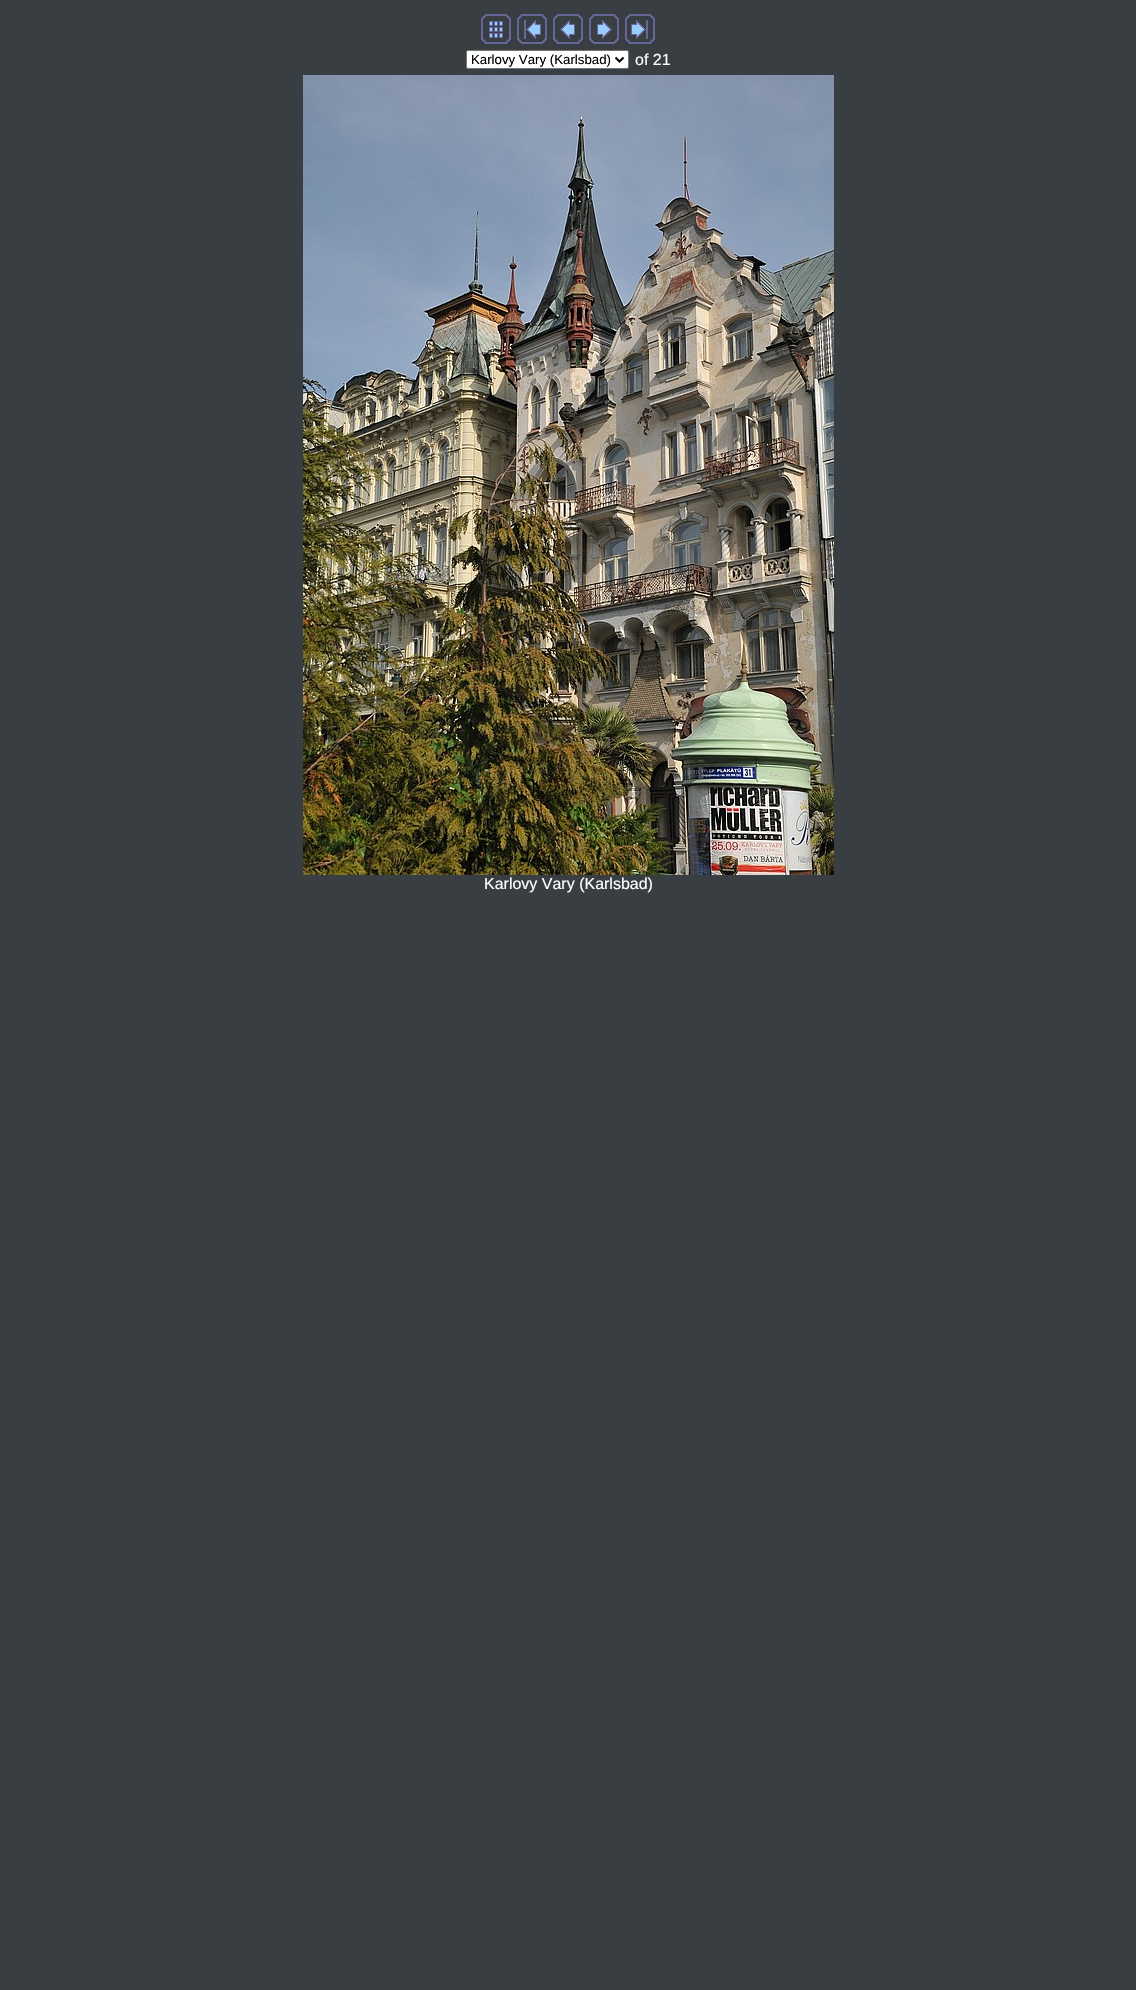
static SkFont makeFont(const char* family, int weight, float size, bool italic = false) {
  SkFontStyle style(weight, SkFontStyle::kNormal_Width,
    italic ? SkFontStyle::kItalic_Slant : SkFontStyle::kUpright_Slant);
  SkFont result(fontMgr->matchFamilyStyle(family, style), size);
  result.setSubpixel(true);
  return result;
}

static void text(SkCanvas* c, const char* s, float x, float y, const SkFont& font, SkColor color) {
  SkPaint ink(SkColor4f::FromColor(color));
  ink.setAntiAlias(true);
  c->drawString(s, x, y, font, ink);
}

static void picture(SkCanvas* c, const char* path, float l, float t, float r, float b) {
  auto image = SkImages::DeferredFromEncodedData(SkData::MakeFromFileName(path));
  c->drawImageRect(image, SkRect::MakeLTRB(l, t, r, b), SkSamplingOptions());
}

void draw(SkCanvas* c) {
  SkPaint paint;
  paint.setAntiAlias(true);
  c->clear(0xff383e42);
  picture(c, "img_01.png", 481, 14, 511, 44);
  picture(c, "img_02.png", 517, 14, 547, 44);
  picture(c, "img_03.png", 553, 14, 583, 44);
  picture(c, "img_04.png", 589, 14, 619, 44);
  picture(c, "img_05.png", 625, 14, 655, 44);
  paint.setColor(0xffffffff);
  c->drawRoundRect(SkRect::MakeLTRB(466.5f, 50.5f, 628.5f, 68.5f), 1.5f, 1.5f, paint);
  paint.setStyle(SkPaint::kStroke_Style);
  paint.setStrokeWidth(1);
  paint.setColor(0xff767676);
  c->drawRoundRect(SkRect::MakeLTRB(466.5f, 50.5f, 628.5f, 68.5f), 1.5f, 1.5f, paint);
  paint.setStrokeWidth(2);
  paint.setColor(0xff000000);
  c->drawPath(SkPathBuilder().moveTo(615.5f, 57.5f).lineTo(619.5f, 61.5f).lineTo(623.5f, 57.5f).detach(), paint);
  SkFont face1 = makeFont("Liberation Sans", 400, 13.25f);
  text(c, "Karlovy Vary (Karlsbad)", 471, 64, face1, 0xff000000);
  SkFont face2 = makeFont("Liberation Sans", 400, 16);
  text(c, "of 21", 635, 65, face2, 0xffffffff);
  picture(c, "img_06.png", 303, 75, 834, 875);
  text(c, "Karlovy Vary (Karlsbad)", 484, 889, face2, 0xffffffff);
}
